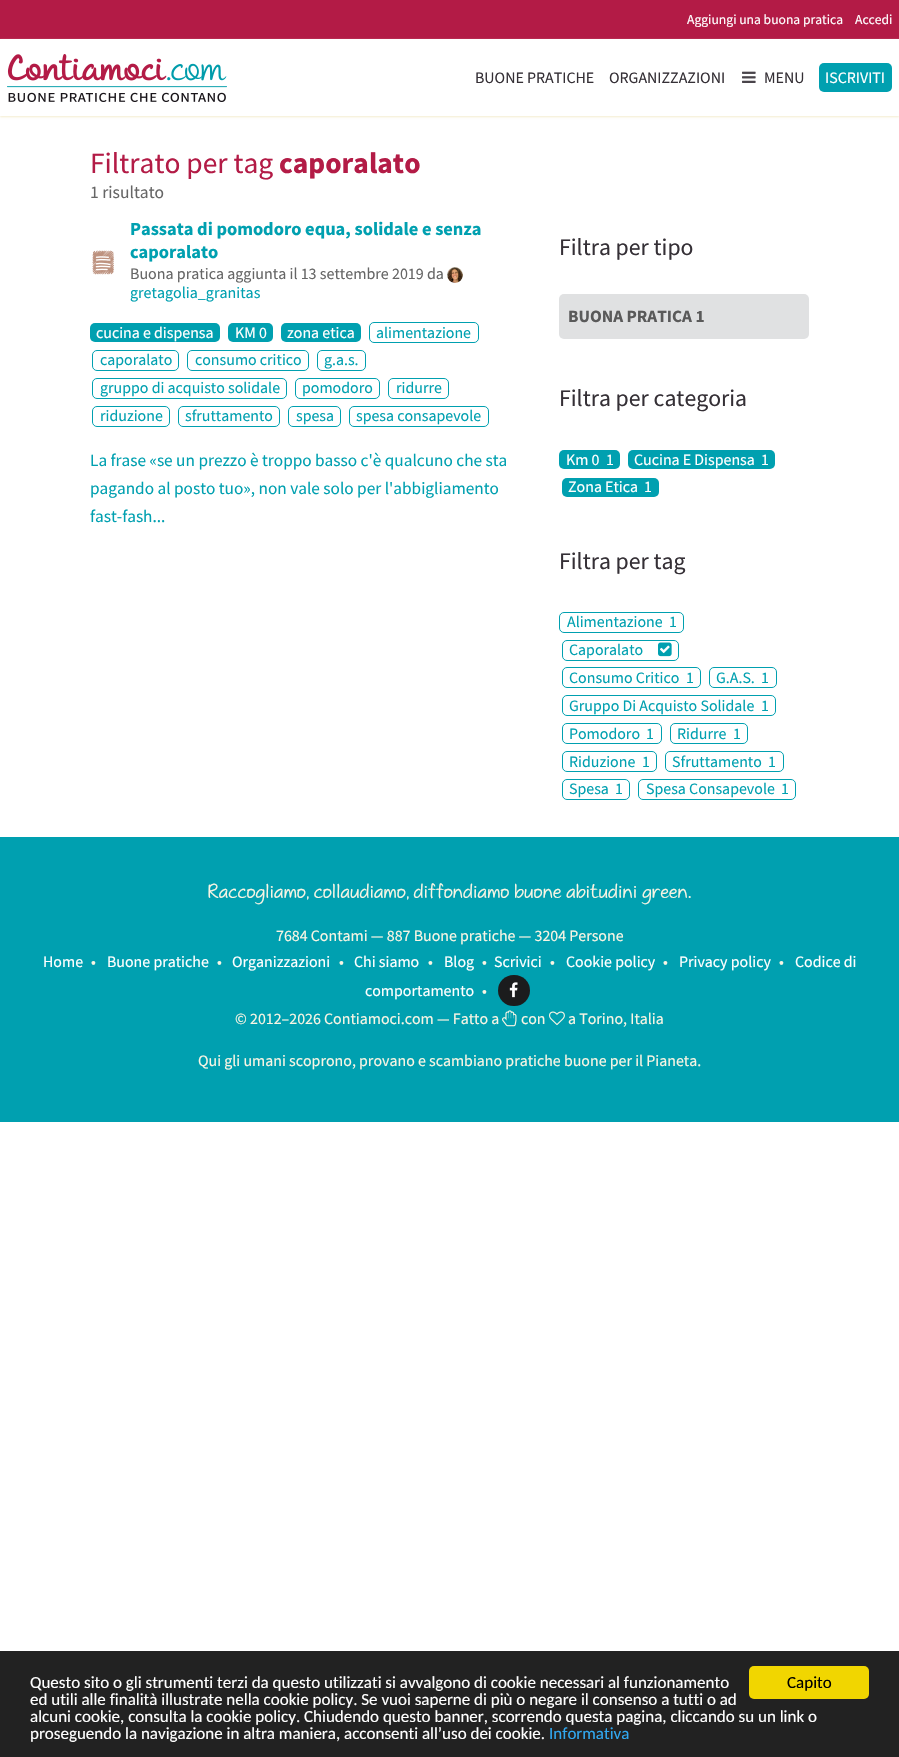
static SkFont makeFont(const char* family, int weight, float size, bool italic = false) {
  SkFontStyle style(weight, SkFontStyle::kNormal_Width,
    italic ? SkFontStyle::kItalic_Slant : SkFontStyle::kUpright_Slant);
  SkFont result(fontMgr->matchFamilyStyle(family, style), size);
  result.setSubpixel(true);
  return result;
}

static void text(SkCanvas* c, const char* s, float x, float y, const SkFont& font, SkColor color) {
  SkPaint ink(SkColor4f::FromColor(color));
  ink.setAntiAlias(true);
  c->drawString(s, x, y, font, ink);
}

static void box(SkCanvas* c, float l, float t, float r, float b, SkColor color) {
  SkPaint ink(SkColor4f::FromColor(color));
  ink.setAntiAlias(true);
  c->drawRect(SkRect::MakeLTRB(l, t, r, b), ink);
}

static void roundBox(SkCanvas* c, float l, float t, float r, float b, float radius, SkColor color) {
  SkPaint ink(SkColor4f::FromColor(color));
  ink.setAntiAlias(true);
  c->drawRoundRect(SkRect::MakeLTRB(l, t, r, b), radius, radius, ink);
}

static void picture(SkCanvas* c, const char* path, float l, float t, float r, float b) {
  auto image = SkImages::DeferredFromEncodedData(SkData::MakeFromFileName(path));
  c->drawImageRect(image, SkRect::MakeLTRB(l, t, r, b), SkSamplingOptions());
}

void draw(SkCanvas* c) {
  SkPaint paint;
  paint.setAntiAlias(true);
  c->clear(0xffffffff);
  box(c, 0, 0, 899, 39, 0xffb31b46);
  SkFont face1 = makeFont("Source Sans Pro", 400, 13.6f);
  text(c, "Aggiungi una buona pratica", 687, 24, face1, 0xffffffff);
  text(c, "Accedi", 855, 24, face1, 0xffffffff);
  c->save();
  c->clipPath(SkPathBuilder(SkPathFillType::kEvenOdd).moveTo(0, 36).lineTo(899, 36).lineTo(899, 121).lineTo(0, 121).close().moveTo(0, 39).lineTo(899, 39).lineTo(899, 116).lineTo(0, 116).close().detach(), true);
  paint.setColor(0xfff4edcf);
  paint.setMaskFilter(SkMaskFilter::MakeBlur(kNormal_SkBlurStyle, 1));
  c->drawRect(SkRect::MakeLTRB(0, 40, 899, 117), paint);
  paint.setMaskFilter(nullptr);
  c->restore();
  picture(c, "img_01.png", 7, 54, 227, 102);
  SkFont face2 = makeFont("Source Sans Pro", 400, 15.9f);
  text(c, "BUONE PRATICHE", 475, 83, face2, 0xff353036);
  text(c, "ORGANIZZAZIONI", 609, 83, face2, 0xff353036);
  picture(c, "img_02.png", 742, 71, 756, 83);
  text(c, "MENU", 764, 83, face2, 0xff353036);
  roundBox(c, 819, 63, 892, 92, 5, 0xff00a0b0);
  text(c, "ISCRIVITI", 825, 83, face2, 0xffffffff);
  SkFont face3 = makeFont("Source Sans Pro", 400, 29.5f);
  text(c, "Filtrato per tag", 90, 173, face3, 0xffb31b46);
  SkFont face4 = makeFont("Source Sans Pro", 700, 29.5f);
  text(c, "caporalato", 279, 173, face4, 0xffb31b46);
  SkFont face5 = makeFont("Source Sans Pro", 400, 17.5f);
  text(c, "1 risultato", 90, 198, face5, 0xff666666);
  picture(c, "img_03.png", 92, 250, 114, 275);
  SkFont face6 = makeFont("Source Sans Pro", 700, 18.4f);
  text(c, "Passata di pomodoro equa, solidale e senza", 130, 235, face6, 0xff00a0b0);
  text(c, "caporalato", 130, 258, face6, 0xff00a0b0);
  SkFont face7 = makeFont("Source Sans Pro", 400, 16);
  text(c, "Buona pratica aggiunta il 13 settembre 2019 da", 130, 279, face7, 0xff666666);
  picture(c, "img_04.png", 447, 267, 463, 283);
  text(c, "gretagolia_granitas", 130, 298, face7, 0xff00a0b0);
  roundBox(c, 90, 323, 220, 342, 5, 0xff00a0b0);
  text(c, "cucina e dispensa", 96, 338, face2, 0xffffffff);
  roundBox(c, 228, 323, 273, 342, 5, 0xff00a0b0);
  text(c, "KM 0", 235, 338, face2, 0xffffffff);
  roundBox(c, 281, 323, 361, 342, 5, 0xff00a0b0);
  text(c, "zona etica", 287, 338, face2, 0xffffffff);
  paint.setStyle(SkPaint::kStroke_Style);
  paint.setStrokeWidth(1);
  paint.setColor(0xff00a0b0);
  c->drawRoundRect(SkRect::MakeLTRB(369.5f, 322.5f, 478.5f, 342.5f), 4.5f, 4.5f, paint);
  text(c, "alimentazione", 376, 338, face2, 0xff00a0b0);
  c->drawRoundRect(SkRect::MakeLTRB(92.5f, 350.5f, 178.5f, 370.5f), 4.5f, 4.5f, paint);
  text(c, "caporalato", 100, 365, face2, 0xff00a0b0);
  c->drawRoundRect(SkRect::MakeLTRB(187.5f, 350.5f, 308.5f, 370.5f), 4.5f, 4.5f, paint);
  text(c, "consumo critico", 195, 365, face2, 0xff00a0b0);
  c->drawRoundRect(SkRect::MakeLTRB(317.5f, 350.5f, 365.5f, 370.5f), 4.5f, 4.5f, paint);
  text(c, "g.a.s.", 324, 365, face2, 0xff00a0b0);
  c->drawRoundRect(SkRect::MakeLTRB(92.5f, 378.5f, 286.5f, 398.5f), 4.5f, 4.5f, paint);
  text(c, "gruppo di acquisto solidale", 100, 393, face2, 0xff00a0b0);
  c->drawRoundRect(SkRect::MakeLTRB(295.5f, 378.5f, 379.5f, 398.5f), 4.5f, 4.5f, paint);
  text(c, "pomodoro", 302, 393, face2, 0xff00a0b0);
  c->drawRoundRect(SkRect::MakeLTRB(388.5f, 378.5f, 448.5f, 398.5f), 4.5f, 4.5f, paint);
  text(c, "ridurre", 396, 393, face2, 0xff00a0b0);
  c->drawRoundRect(SkRect::MakeLTRB(92.5f, 406.5f, 169.5f, 426.5f), 4.5f, 4.5f, paint);
  text(c, "riduzione", 100, 421, face2, 0xff00a0b0);
  c->drawRoundRect(SkRect::MakeLTRB(178.5f, 406.5f, 279.5f, 426.5f), 4.5f, 4.5f, paint);
  text(c, "sfruttamento", 185, 421, face2, 0xff00a0b0);
  c->drawRoundRect(SkRect::MakeLTRB(288.5f, 406.5f, 340.5f, 426.5f), 4.5f, 4.5f, paint);
  text(c, "spesa", 296, 421, face2, 0xff00a0b0);
  c->drawRoundRect(SkRect::MakeLTRB(349.5f, 406.5f, 488.5f, 426.5f), 4.5f, 4.5f, paint);
  text(c, "spesa consapevole", 356, 421, face2, 0xff00a0b0);
  SkFont face8 = makeFont("Source Sans Pro", 400, 17.25f);
  text(c, "La frase «se un prezzo è troppo basso c'è qualcuno che sta", 90, 466, face8, 0xff00a0b0);
  text(c, "pagando al posto tuo», non vale solo per l'abbigliamento", 90, 494, face8, 0xff00a0b0);
  text(c, "fast-fash...", 90, 522, face8, 0xff00a0b0);
  SkFont face9 = makeFont("Source Sans Pro", 400, 23.75f);
  text(c, "Filtra per tipo", 559, 255, face9, 0xff353036);
  roundBox(c, 559, 294, 809, 339, 5, 0xffe0e1e2);
  SkFont face10 = makeFont("Source Sans Pro", 700, 17.25f);
  text(c, "BUONA PRATICA 1", 568, 322, face10, 0xff5a5a5a);
  text(c, "Filtra per categoria", 559, 406, face9, 0xff353036);
  roundBox(c, 559, 450, 620, 469, 5, 0xff00a0b0);
  text(c, "Km 0", 566, 465, face2, 0xffffffff);
  text(c, "1", 606, 465, face2, 0xffffffff);
  roundBox(c, 628, 450, 775, 469, 5, 0xff00a0b0);
  text(c, "Cucina E Dispensa", 634, 465, face2, 0xffffffff);
  text(c, "1", 761, 465, face2, 0xffffffff);
  roundBox(c, 562, 478, 659, 497, 5, 0xff00a0b0);
  text(c, "Zona Etica", 568, 492, face2, 0xffffffff);
  text(c, "1", 644, 492, face2, 0xffffffff);
  text(c, "Filtra per tag", 559, 569, face9, 0xff353036);
  c->drawRoundRect(SkRect::MakeLTRB(559.5f, 612.5f, 683.5f, 632.5f), 4.5f, 4.5f, paint);
  text(c, "Alimentazione", 567, 627, face2, 0xff00a0b0);
  text(c, "1", 669, 627, face2, 0xff00a0b0);
  c->drawRoundRect(SkRect::MakeLTRB(562.5f, 640.5f, 678.5f, 660.5f), 4.5f, 4.5f, paint);
  text(c, "Caporalato", 569, 655, face2, 0xff00a0b0);
  picture(c, "img_05.png", 658, 642, 672, 657);
  c->drawRoundRect(SkRect::MakeLTRB(562.5f, 667.5f, 700.5f, 687.5f), 4.5f, 4.5f, paint);
  text(c, "Consumo Critico", 569, 683, face2, 0xff00a0b0);
  text(c, "1", 686, 683, face2, 0xff00a0b0);
  c->drawRoundRect(SkRect::MakeLTRB(709.5f, 667.5f, 776.5f, 687.5f), 4.5f, 4.5f, paint);
  text(c, "G.A.S.", 716, 683, face2, 0xff00a0b0);
  text(c, "1", 761, 683, face2, 0xff00a0b0);
  c->drawRoundRect(SkRect::MakeLTRB(562.5f, 695.5f, 775.5f, 715.5f), 4.5f, 4.5f, paint);
  text(c, "Gruppo Di Acquisto Solidale", 569, 711, face2, 0xff00a0b0);
  text(c, "1", 761, 711, face2, 0xff00a0b0);
  c->drawRoundRect(SkRect::MakeLTRB(562.5f, 723.5f, 661.5f, 743.5f), 4.5f, 4.5f, paint);
  text(c, "Pomodoro", 569, 739, face2, 0xff00a0b0);
  text(c, "1", 646, 739, face2, 0xff00a0b0);
  c->drawRoundRect(SkRect::MakeLTRB(670.5f, 723.5f, 747.5f, 743.5f), 4.5f, 4.5f, paint);
  text(c, "Ridurre", 677, 739, face2, 0xff00a0b0);
  text(c, "1", 733, 739, face2, 0xff00a0b0);
  c->drawRoundRect(SkRect::MakeLTRB(562.5f, 751.5f, 656.5f, 771.5f), 4.5f, 4.5f, paint);
  text(c, "Riduzione", 569, 767, face2, 0xff00a0b0);
  text(c, "1", 642, 767, face2, 0xff00a0b0);
  c->drawRoundRect(SkRect::MakeLTRB(665.5f, 751.5f, 783.5f, 771.5f), 4.5f, 4.5f, paint);
  text(c, "Sfruttamento", 672, 767, face2, 0xff00a0b0);
  text(c, "1", 768, 767, face2, 0xff00a0b0);
  c->drawRoundRect(SkRect::MakeLTRB(562.5f, 779.5f, 629.5f, 799.5f), 4.5f, 4.5f, paint);
  text(c, "Spesa", 569, 794, face2, 0xff00a0b0);
  text(c, "1", 615, 794, face2, 0xff00a0b0);
  c->drawRoundRect(SkRect::MakeLTRB(638.5f, 779.5f, 795.5f, 799.5f), 4.5f, 4.5f, paint);
  text(c, "Spesa Consapevole", 646, 794, face2, 0xff00a0b0);
  text(c, "1", 781, 794, face2, 0xff00a0b0);
  box(c, 0, 837, 899, 1122, 0xff00a0b0);
  SkFont face11 = makeFont("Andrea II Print", 400, 19.1f);
  text(c, "Raccogliamo, collaudiamo, diffondiamo buone abitudini green.", 208, 898, face11, 0xfff9f5e4);
  text(c, "7684 Contami — 887 Buone pratiche — 3204 Persone", 276, 941, face2, 0xfff9f5e4);
  text(c, "Home", 43, 967, face2, 0xffffffff);
  text(c, "•", 91, 967, face2, 0xfff9f5e4);
  text(c, "Buone pratiche", 107, 967, face2, 0xffffffff);
  text(c, "•", 217, 967, face2, 0xfff9f5e4);
  text(c, "Organizzazioni", 232, 967, face2, 0xffffffff);
  text(c, "•", 339, 967, face2, 0xfff9f5e4);
  text(c, "Chi siamo", 354, 967, face2, 0xffffffff);
  text(c, "•", 428, 967, face2, 0xfff9f5e4);
  text(c, "Blog", 444, 967, face2, 0xffffffff);
  text(c, "•", 482, 967, face2, 0xfff9f5e4);
  text(c, "Scrivici", 494, 967, face2, 0xffffffff);
  text(c, "•", 550, 967, face2, 0xfff9f5e4);
  text(c, "Cookie policy", 566, 967, face2, 0xffffffff);
  text(c, "•", 663, 967, face2, 0xfff9f5e4);
  text(c, "Privacy policy", 679, 967, face2, 0xffffffff);
  text(c, "•", 779, 967, face2, 0xfff9f5e4);
  text(c, "Codice di", 795, 967, face2, 0xffffffff);
  text(c, "comportamento", 365, 996, face2, 0xffffffff);
  text(c, "•", 482, 996, face2, 0xfff9f5e4);
  roundBox(c, 498, 975, 530, 1006, 15.5f, 0xff1b1c1d);
  picture(c, "img_06.png", 509, 982, 518, 998);
  text(c, "© 2012–2026 Contiamoci.com — Fatto a", 235, 1024, face2, 0xfff9f5e4);
  picture(c, "img_07.png", 502, 1010, 517, 1027);
  text(c, "con", 521, 1024, face2, 0xfff9f5e4);
  picture(c, "img_08.png", 549, 1011, 565, 1026);
  text(c, "a Torino, Italia", 568, 1024, face2, 0xfff9f5e4);
  text(c, "Qui gli umani scoprono, provano e scambiano pratiche buone per il Pianeta.", 198, 1066, face2, 0xfff9f5e4);
  box(c, 0, 1651, 899, 1757, 0xff222222);
  SkFont face12 = makeFont("Carlito", 400, 17);
  text(c, "Questo sito o gli strumenti terzi da questo utilizzati si avvalgono di cookie necessari al funzionamento", 30, 1688, face12, 0xffffffff);
  text(c, "ed utili alle finalità illustrate nella cookie policy. Se vuoi saperne di più o negare il consenso a tutti o ad", 30, 1705, face12, 0xffffffff);
  text(c, "alcuni cookie, consulta la cookie policy. Chiudendo questo banner, scorrendo questa pagina, cliccando su un link o", 30, 1722, face12, 0xffffffff);
  text(c, "proseguendo la navigazione in altra maniera, acconsenti all’uso dei cookie.", 30, 1739, face12, 0xffffffff);
  text(c, "Informativa", 549, 1739, face12, 0xff31a8f0);
  roundBox(c, 749, 1666, 869, 1699, 5, 0xfff1d600);
  text(c, "Capito", 787, 1688, face12, 0xff000000);
}
